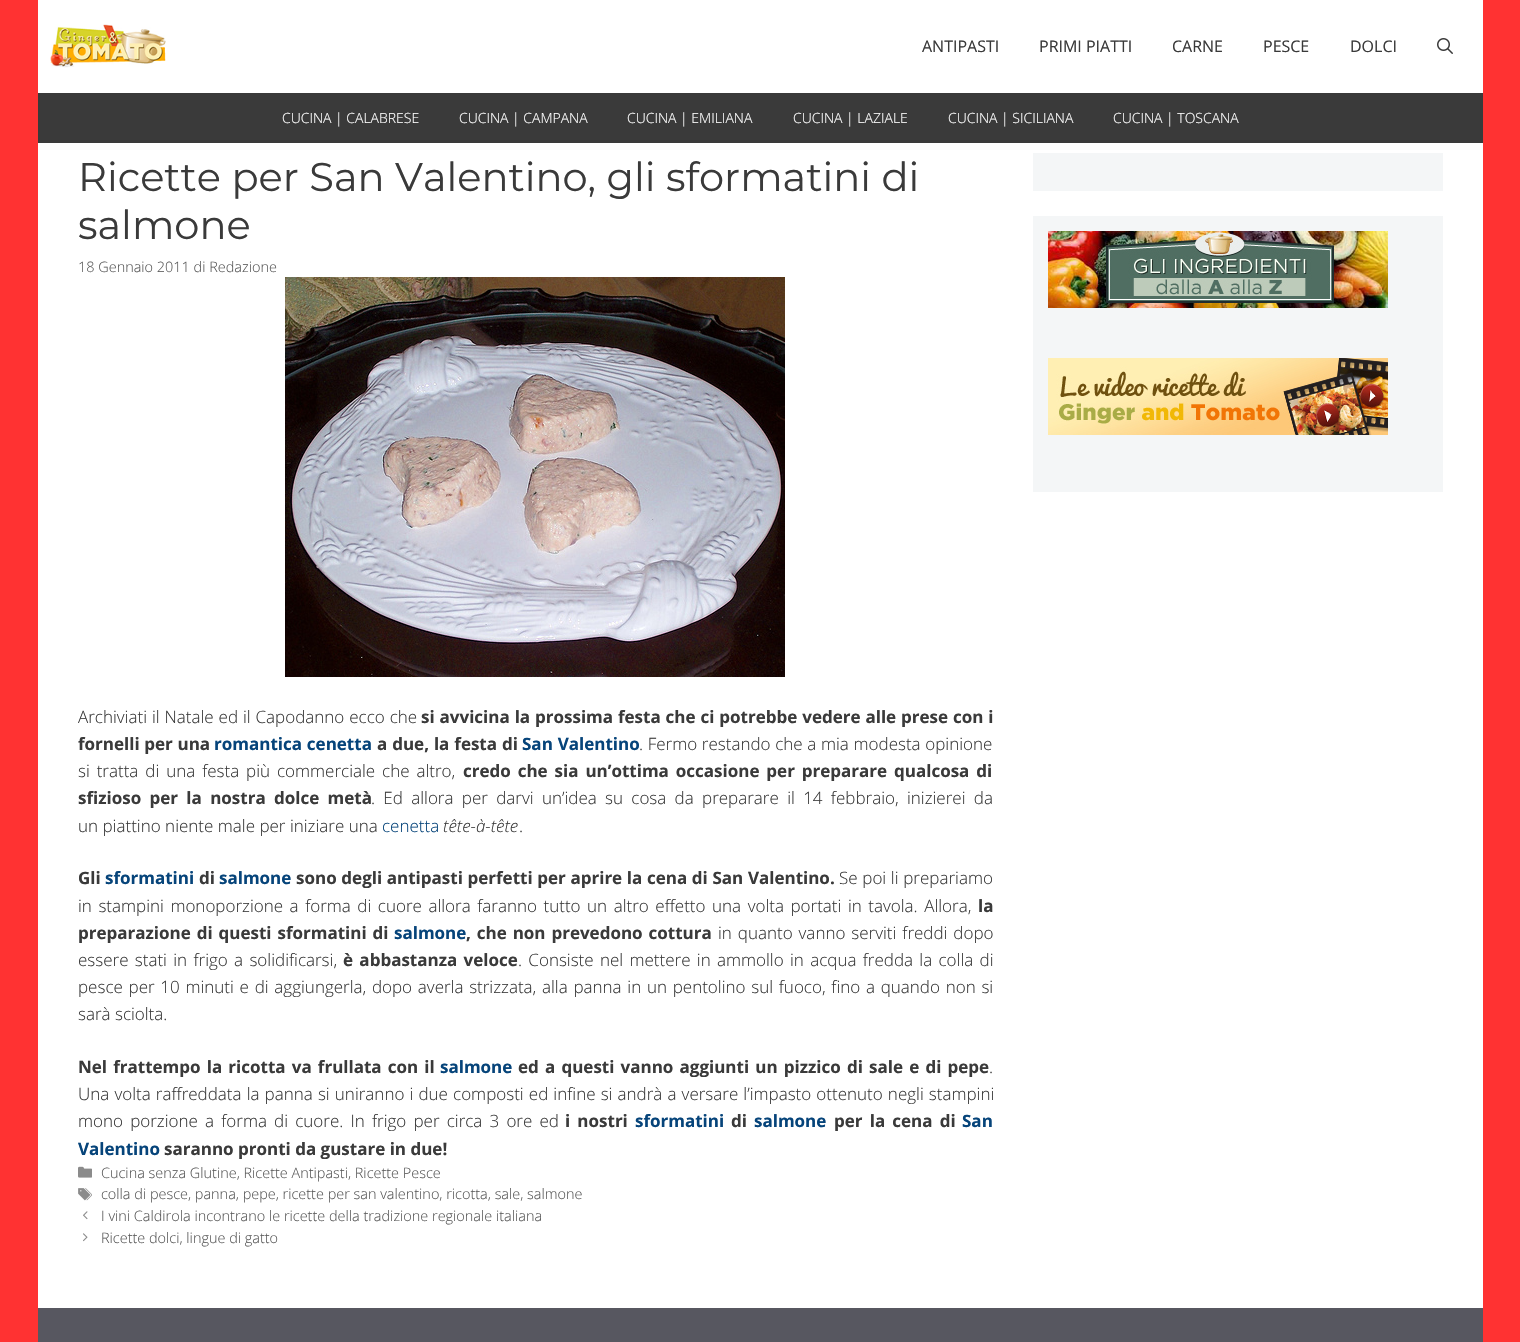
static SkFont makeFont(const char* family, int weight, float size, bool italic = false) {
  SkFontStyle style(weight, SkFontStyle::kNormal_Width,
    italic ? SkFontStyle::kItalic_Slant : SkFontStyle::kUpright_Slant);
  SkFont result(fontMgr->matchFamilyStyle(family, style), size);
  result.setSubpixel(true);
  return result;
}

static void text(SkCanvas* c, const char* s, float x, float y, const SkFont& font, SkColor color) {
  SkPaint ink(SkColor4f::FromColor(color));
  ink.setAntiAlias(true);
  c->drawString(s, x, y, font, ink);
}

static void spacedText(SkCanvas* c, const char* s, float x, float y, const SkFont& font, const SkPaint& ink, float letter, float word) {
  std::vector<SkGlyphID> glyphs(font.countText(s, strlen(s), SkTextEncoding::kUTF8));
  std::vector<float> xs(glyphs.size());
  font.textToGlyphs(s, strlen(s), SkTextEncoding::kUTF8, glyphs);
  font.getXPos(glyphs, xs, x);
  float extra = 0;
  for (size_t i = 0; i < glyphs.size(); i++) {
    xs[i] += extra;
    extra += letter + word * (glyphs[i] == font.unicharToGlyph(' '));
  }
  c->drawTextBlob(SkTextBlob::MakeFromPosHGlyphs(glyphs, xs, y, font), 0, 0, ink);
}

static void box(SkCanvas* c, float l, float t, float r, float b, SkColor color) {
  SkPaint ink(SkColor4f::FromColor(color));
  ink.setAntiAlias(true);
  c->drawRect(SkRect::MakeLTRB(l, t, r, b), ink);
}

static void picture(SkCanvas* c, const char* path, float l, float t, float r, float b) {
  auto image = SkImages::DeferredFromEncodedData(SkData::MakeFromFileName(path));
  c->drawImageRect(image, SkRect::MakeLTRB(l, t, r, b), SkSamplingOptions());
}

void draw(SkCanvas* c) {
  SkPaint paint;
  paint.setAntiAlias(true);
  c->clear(0xffff3232);
  box(c, 38, 0, 1483, 93, 0xffffffff);
  picture(c, "img_01.png", 50, 24, 166, 68);
  SkFont face1 = makeFont("Open Sans", 400, 16);
  text(c, "ANTIPASTI", 922, 52, face1, 0xff3a3a3a);
  text(c, "PRIMI PIATTI", 1039, 52, face1, 0xff3a3a3a);
  text(c, "CARNE", 1172, 52, face1, 0xff3a3a3a);
  text(c, "PESCE", 1263, 52, face1, 0xff3a3a3a);
  text(c, "DOLCI", 1350, 52, face1, 0xff3a3a3a);
  picture(c, "img_02.png", 1437, 38, 1453, 54);
  box(c, 38, 93, 1483, 143, 0xff3a3a3a);
  SkFont face2 = makeFont("Open Sans", 300, 14);
  text(c, "CUCINA | CALABRESE", 282, 123, face2, 0xffffffff);
  text(c, "CUCINA | CAMPANA", 459, 123, face2, 0xffffffff);
  text(c, "CUCINA | EMILIANA", 627, 123, face2, 0xffffffff);
  text(c, "CUCINA | LAZIALE", 793, 123, face2, 0xffffffff);
  text(c, "CUCINA | SICILIANA", 948, 123, face2, 0xffffffff);
  text(c, "CUCINA | TOSCANA", 1113, 123, face2, 0xffffffff);
  box(c, 38, 143, 1483, 1308, 0xffffffff);
  SkFont face3 = makeFont("Montserrat", 400, 40);
  text(c, "Ricette per San Valentino, gli sformatini di", 78, 191, face3, 0xff3a3a3a);
  text(c, "salmone", 78, 239, face3, 0xff3a3a3a);
  SkFont face4 = makeFont("Open Sans", 300, 14.45f);
  text(c, "18 Gennaio 2011 di Redazione", 78, 272, face4, 0xff595959);
  picture(c, "img_03.png", 285, 277, 785, 677);
  SkFont face5 = makeFont("Open Sans", 300, 17);
  paint.setColor(0xff3a3a3a);
  spacedText(c, "Archiviati il Natale ed il Capodanno ecco che", 78, 723, face5, paint, 0, 0.5f);
  SkFont face6 = makeFont("Open Sans", 700, 17);
  spacedText(c, "si avvicina la prossima festa che ci potrebbe vedere alle prese con i", 421, 723, face6, paint, 0, 0.5f);
  spacedText(c, "fornelli per una", 78, 750, face6, paint, 0, 0.25f);
  paint.setColor(0xff06447a);
  spacedText(c, "romantica cenetta", 214, 750, face6, paint, 0, 0.5f);
  paint.setColor(0xff3a3a3a);
  spacedText(c, "a due, la festa di", 377, 750, face6, paint, 0, 0.5f);
  paint.setColor(0xff06447a);
  spacedText(c, "San Valentino", 522, 750, face6, paint, 0, 0.5f);
  paint.setColor(0xff3a3a3a);
  spacedText(c, ". Fermo restando che a mia modesta opinione", 639, 750, face5, paint, 0, 0.25f);
  spacedText(c, "si tratta di una festa più commerciale che altro,", 78, 777, face5, paint, 0, 2.5f);
  spacedText(c, "credo che sia un’ottima occasione per preparare qualcosa di", 463, 777, face6, paint, 0, 2.5f);
  spacedText(c, "sfizioso per la nostra dolce metà", 78, 804, face6, paint, 0, 3.9f);
  spacedText(c, ". Ed allora per darvi un’idea su cosa da preparare il 14 febbraio, inizierei da", 371, 804, face5, paint, 0, 3.9f);
  text(c, "un piattino niente male per iniziare una", 78, 832, face5, 0xff3a3a3a);
  text(c, "cenetta", 382, 832, face5, 0xff06447a);
  SkFont face7 = makeFont("Open Sans", 300, 17, true);
  text(c, "tête-à-tête", 443, 832, face7, 0xff3a3a3a);
  text(c, ".", 519, 832, face5, 0xff3a3a3a);
  text(c, "Gli", 78, 884, face6, 0xff3a3a3a);
  text(c, "sformatini", 105, 884, face6, 0xff06447a);
  text(c, "di", 199, 884, face6, 0xff3a3a3a);
  text(c, "salmone", 219, 884, face6, 0xff06447a);
  spacedText(c, "sono degli antipasti perfetti per aprire la cena di San Valentino.", 296, 884, face6, paint, 0, 0.25f);
  spacedText(c, "Se poi li prepariamo", 839, 884, face5, paint, 0, 0.25f);
  spacedText(c, "in stampini monoporzione a forma di cuore allora faranno tutto un altro effetto una volta portati in tavola. Allora,", 78, 912, face5, paint, 0, 2.1f);
  text(c, "la", 978, 912, face6, 0xff3a3a3a);
  spacedText(c, "preparazione di questi sformatini di", 78, 939, face6, paint, 0, 1.5f);
  text(c, "salmone", 394, 939, face6, 0xff06447a);
  spacedText(c, ", che non prevedono cottura", 466, 939, face6, paint, 0, 1.5f);
  spacedText(c, "in quanto vanno serviti freddi dopo", 718, 939, face5, paint, 0, 1.5f);
  spacedText(c, "essere stati in frigo a solidificarsi,", 78, 966, face5, paint, 0, 1.9f);
  spacedText(c, "è abbastanza veloce", 343, 966, face6, paint, 0, 1.9f);
  spacedText(c, ". Consiste nel mettere in ammollo in acqua fredda la colla di", 518, 966, face5, paint, 0, 1.9f);
  spacedText(c, "pesce per 10 minuti e di aggiungerla, dopo averla strizzata, alla panna in un pentolino sul fuoco, fino a quando non si", 78, 993, face5, paint, 0, 1.3f);
  text(c, "sarà sciolta.", 78, 1020, face5, 0xff3a3a3a);
  spacedText(c, "Nel frattempo la ricotta va frullata con il", 78, 1073, face6, paint, 0, 1.75f);
  text(c, "salmone", 440, 1073, face6, 0xff06447a);
  spacedText(c, "ed a questi vanno aggiunti un pizzico di sale e di pepe", 518, 1073, face6, paint, 0, 1.75f);
  text(c, ".", 989, 1073, face5, 0xff3a3a3a);
  spacedText(c, "Una volta raffreddata la panna si uniranno i due composti ed infine si andrà a versare l’impasto ottenuto negli stampini", 78, 1100, face5, paint, 0, 0.7f);
  spacedText(c, "mono porzione a forma di cuore. In frigo per circa 3 ore ed", 78, 1127, face5, paint, 0, 2.75f);
  spacedText(c, "i nostri", 565, 1127, face6, paint, 0, 2.75f);
  text(c, "sformatini", 635, 1127, face6, 0xff06447a);
  text(c, "di", 731, 1127, face6, 0xff3a3a3a);
  text(c, "salmone", 754, 1127, face6, 0xff06447a);
  spacedText(c, "per la cena di", 834, 1127, face6, paint, 0, 2.75f);
  text(c, "San", 962, 1127, face6, 0xff06447a);
  text(c, "Valentino", 78, 1155, face6, 0xff06447a);
  text(c, "saranno pronti da gustare in due!", 164, 1155, face6, 0xff3a3a3a);
  picture(c, "img_04.png", 78, 1166, 92, 1178);
  text(c, "Cucina senza Glutine, Ricette Antipasti, Ricette Pesce", 101, 1178, face4, 0xff595959);
  picture(c, "img_05.png", 78, 1188, 92, 1201);
  text(c, "colla di pesce, panna, pepe, ricette per san valentino, ricotta, sale, salmone", 101, 1199, face4, 0xff595959);
  picture(c, "img_06.png", 83, 1211, 88, 1220);
  text(c, "I vini Caldirola incontrano le ricette della tradizione regionale italiana", 101, 1221, face4, 0xff595959);
  picture(c, "img_07.png", 83, 1233, 88, 1242);
  text(c, "Ricette dolci, lingue di gatto", 101, 1243, face4, 0xff595959);
  box(c, 1033, 153, 1443, 191, 0xfff4f6f7);
  box(c, 1033, 216, 1443, 492, 0xfff4f6f7);
  picture(c, "img_08.png", 1048, 231, 1388, 308);
  picture(c, "img_09.png", 1048, 358, 1388, 435);
  box(c, 38, 1308, 1483, 1342, 0xff575760);
}
